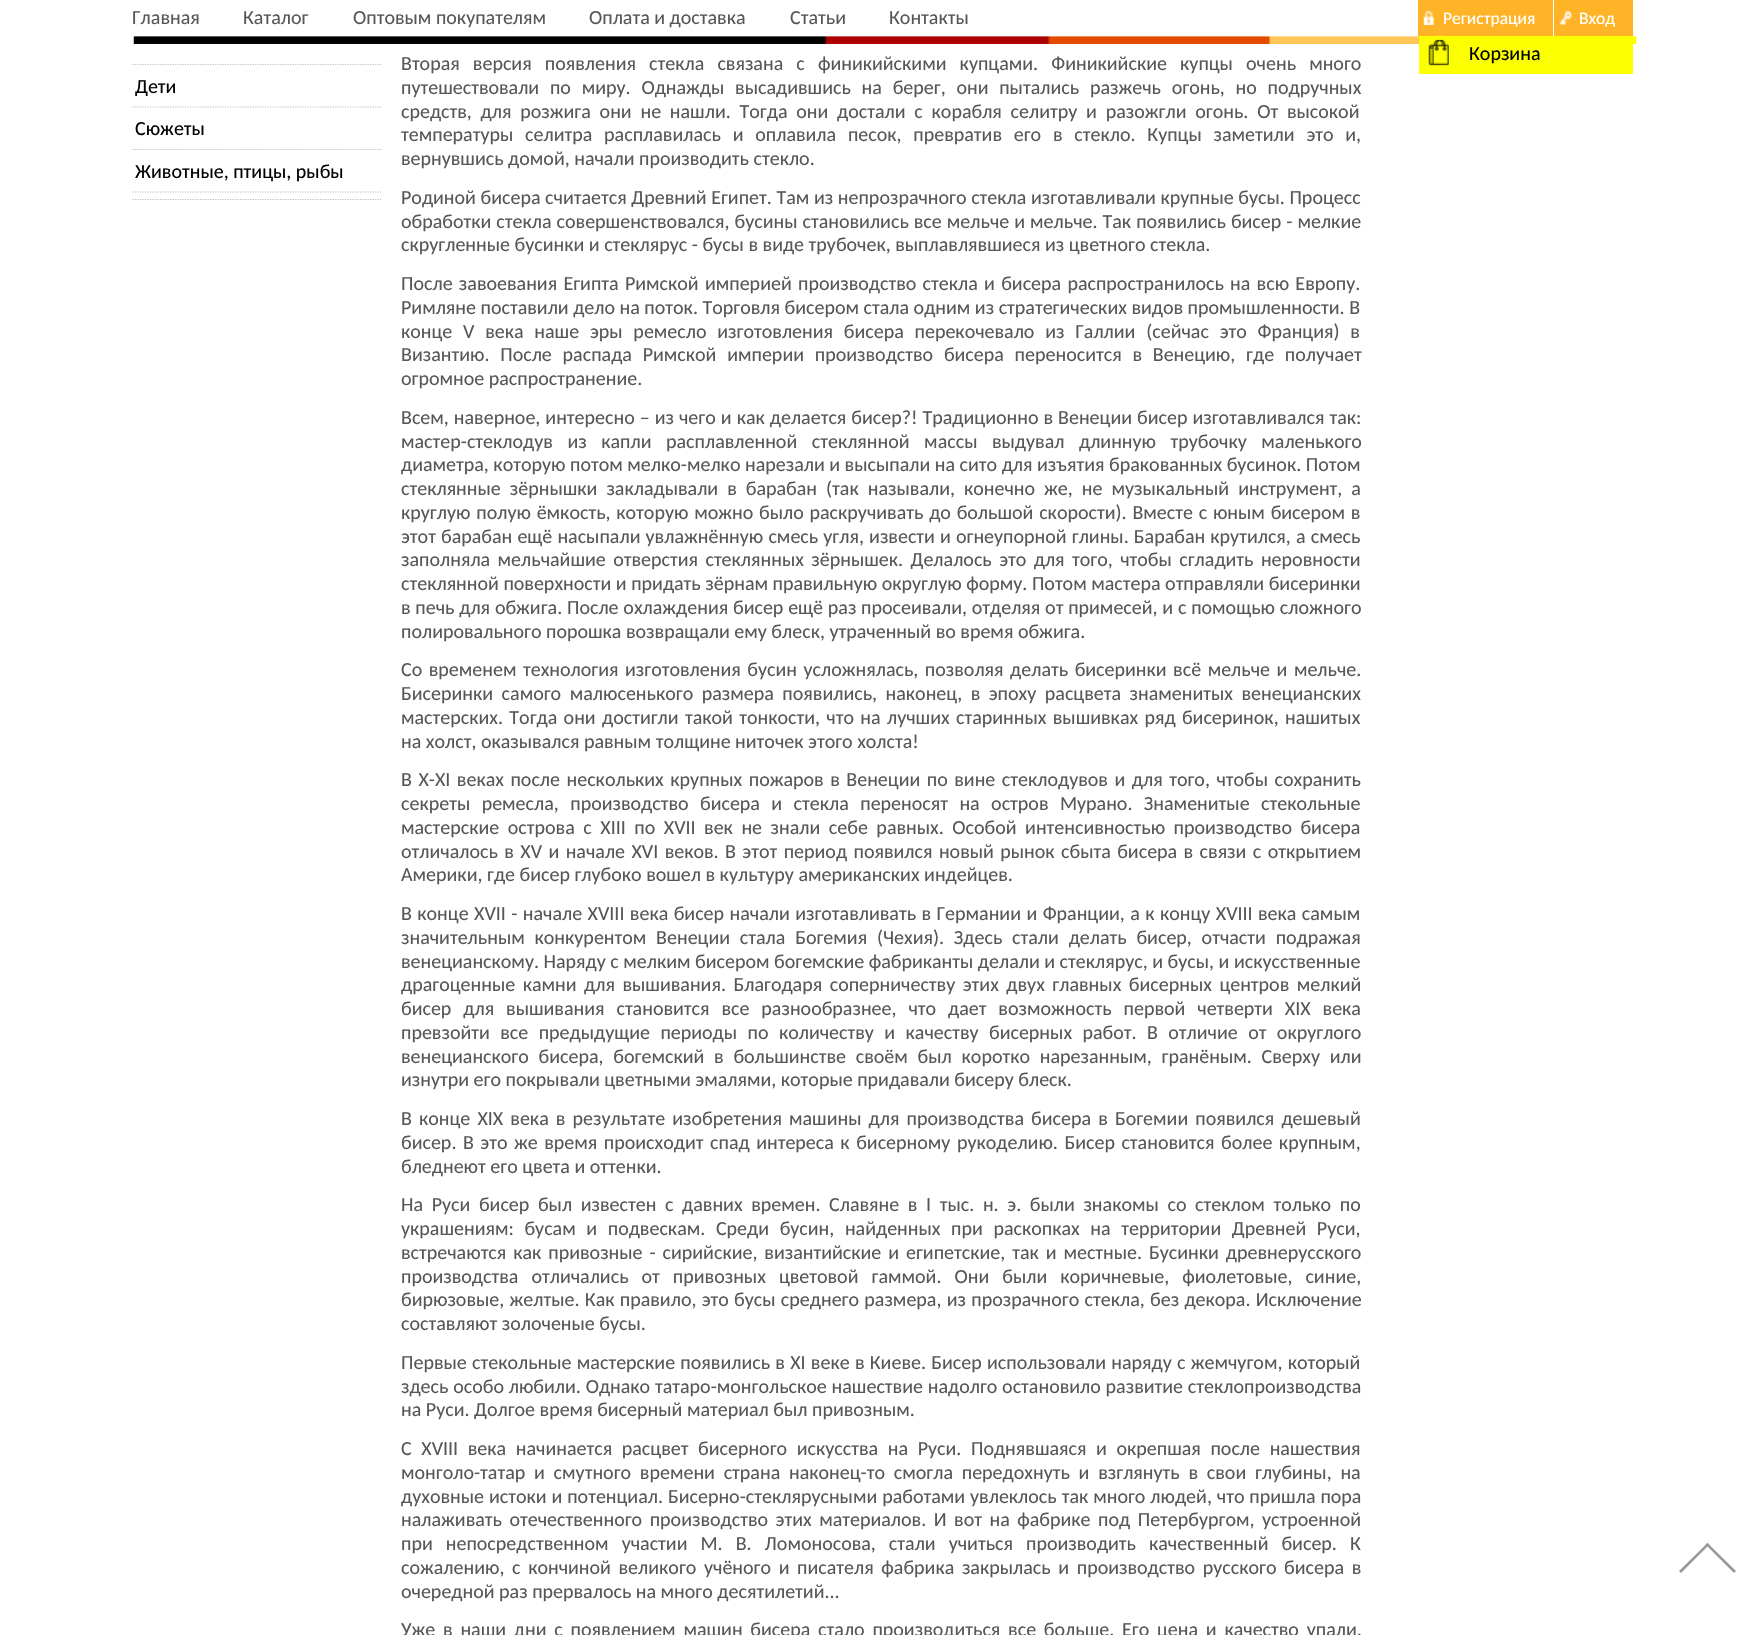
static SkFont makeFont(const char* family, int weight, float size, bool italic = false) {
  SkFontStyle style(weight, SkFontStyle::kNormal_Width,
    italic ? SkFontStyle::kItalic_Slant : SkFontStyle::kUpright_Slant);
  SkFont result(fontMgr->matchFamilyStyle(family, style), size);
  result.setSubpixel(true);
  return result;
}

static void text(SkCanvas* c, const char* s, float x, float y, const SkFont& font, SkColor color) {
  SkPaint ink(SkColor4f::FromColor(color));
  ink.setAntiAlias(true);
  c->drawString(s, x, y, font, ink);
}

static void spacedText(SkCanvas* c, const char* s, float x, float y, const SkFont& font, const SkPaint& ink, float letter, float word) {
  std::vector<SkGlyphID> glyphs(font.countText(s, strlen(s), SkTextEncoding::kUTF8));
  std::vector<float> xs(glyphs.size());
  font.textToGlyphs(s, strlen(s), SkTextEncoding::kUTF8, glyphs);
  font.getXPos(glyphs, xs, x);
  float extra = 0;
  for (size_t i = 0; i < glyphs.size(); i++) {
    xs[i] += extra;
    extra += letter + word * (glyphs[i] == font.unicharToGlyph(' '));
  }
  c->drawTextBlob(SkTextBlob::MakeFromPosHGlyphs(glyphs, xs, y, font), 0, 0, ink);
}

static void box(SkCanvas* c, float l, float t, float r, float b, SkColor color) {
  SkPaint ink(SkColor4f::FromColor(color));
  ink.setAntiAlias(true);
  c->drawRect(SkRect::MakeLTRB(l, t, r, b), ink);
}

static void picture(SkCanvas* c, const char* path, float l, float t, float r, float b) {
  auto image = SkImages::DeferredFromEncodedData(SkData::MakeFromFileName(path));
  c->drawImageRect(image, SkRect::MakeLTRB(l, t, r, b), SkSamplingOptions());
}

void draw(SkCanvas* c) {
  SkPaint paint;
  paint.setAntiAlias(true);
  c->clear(0xffffffff);
  picture(c, "img_01.png", 133, 36, 1637, 44);
  SkFont face1 = makeFont("Carlito", 400, 20);
  text(c, "Главная", 132, 24, face1, 0xff575757);
  text(c, "Каталог", 243, 24, face1, 0xff575757);
  text(c, "Оптовым покупателям", 353, 24, face1, 0xff575757);
  text(c, "Оплата и доставка", 589, 24, face1, 0xff575757);
  text(c, "Статьи", 790, 24, face1, 0xff575757);
  text(c, "Контакты", 889, 24, face1, 0xff575757);
  box(c, 1418, 0, 1553, 36, 0xffffb427);
  picture(c, "img_02.png", 1423, 11, 1434, 25);
  SkFont face2 = makeFont("Carlito", 400, 17.5f);
  text(c, "Регистрация", 1443, 24, face2, 0xffffffff);
  box(c, 1554, 0, 1633, 36, 0xffffb427);
  picture(c, "img_03.png", 1559, 11, 1572, 25);
  text(c, "Вход", 1579, 24, face2, 0xffffffff);
  paint.setStyle(SkPaint::kStroke_Style);
  paint.setStrokeWidth(1.2f);
  paint.setColor(0xffc0c0c0);
  paint.setPathEffect(SkDashPathEffect::Make({{1.25f, 1.25f}}, 0));
  c->drawPath(SkPathBuilder().moveTo(132.5f, 199.5f).lineTo(382.5f, 199.5f).detach(), paint);
  paint.setPathEffect(nullptr);
  paint.setPathEffect(SkDashPathEffect::Make({{1.25f, 1.25f}}, 0));
  c->drawPath(SkPathBuilder().moveTo(132.5f, 64.5f).lineTo(382.5f, 64.5f).detach(), paint);
  paint.setPathEffect(nullptr);
  paint.setPathEffect(SkDashPathEffect::Make({{1.25f, 1.25f}}, 0));
  c->drawPath(SkPathBuilder().moveTo(132.5f, 107).lineTo(382.5f, 107).detach(), paint);
  paint.setPathEffect(nullptr);
  text(c, "Дети", 135, 93, face1, 0xff000000);
  paint.setPathEffect(SkDashPathEffect::Make({{1.25f, 1.25f}}, 0));
  c->drawPath(SkPathBuilder().moveTo(132.5f, 149.5f).lineTo(382.5f, 149.5f).detach(), paint);
  paint.setPathEffect(nullptr);
  text(c, "Сюжеты", 135, 135, face1, 0xff000000);
  paint.setPathEffect(SkDashPathEffect::Make({{1.25f, 1.25f}}, 0));
  c->drawPath(SkPathBuilder().moveTo(132.5f, 192).lineTo(382.5f, 192).detach(), paint);
  paint.setPathEffect(nullptr);
  text(c, "Животные, птицы, рыбы", 135, 178, face1, 0xff000000);
  paint.setStyle(SkPaint::kFill_Style);
  paint.setColor(0xff575757);
  spacedText(c, "Вторая версия появления стекла связана с финикийскими купцами. Финикийские купцы очень много", 401, 70, face1, paint, 0, 8.6f);
  spacedText(c, "путешествовали по миру. Однажды высадившись на берег, они пытались разжечь огонь, но подручных", 401, 94, face1, paint, 0, 6.25f);
  spacedText(c, "средств, для розжига они не нашли. Тогда они достали с корабля селитру и разожгли огонь. От высокой", 401, 118, face1, paint, 0, 4.25f);
  spacedText(c, "температуры селитра расплавилась и оплавила песок, превратив его в стекло. Купцы заметили это и,", 401, 141, face1, paint, 0, 7.25f);
  text(c, "вернувшись домой, начали производить стекло.", 401, 165, face1, 0xff575757);
  spacedText(c, "Родиной бисера считается Древний Египет. Там из непрозрачного стекла изготавливали крупные бусы. Процесс", 401, 204, face1, paint, 0, 0.1f);
  spacedText(c, "обработки стекла совершенствовался, бусины становились все мельче и мельче. Так появились бисер - мелкие", 401, 228, face1, paint, 0, 0.5f);
  text(c, "скругленные бусинки и стеклярус - бусы в виде трубочек, выплавлявшиеся из цветного стекла.", 401, 251, face1, 0xff575757);
  spacedText(c, "После завоевания Египта Римской империей производство стекла и бисера распространилось на всю Европу.", 401, 290, face1, paint, 0, 1.75f);
  text(c, "Римляне поставили дело на поток. Торговля бисером стала одним из стратегических видов промышленности. В", 401, 314, face1, 0xff575757);
  spacedText(c, "конце V века наше эры ремесло изготовления бисера перекочевало из Галлии (сейчас это Франция) в", 401, 338, face1, paint, 0, 6.25f);
  spacedText(c, "Византию. После распада Римской империи производство бисера переносится в Венецию, где получает", 401, 361, face1, paint, 0, 6.25f);
  text(c, "огромное распространение.", 401, 385, face1, 0xff575757);
  spacedText(c, "Всем, наверное, интересно – из чего и как делается бисер?! Традиционно в Венеции бисер изготавливался так:", 401, 424, face1, paint, 0, 0.5f);
  spacedText(c, "мастер-стеклодув из капли расплавленной стеклянной массы выдувал длинную трубочку маленького", 401, 448, face1, paint, 0, 10);
  text(c, "диаметра, которую потом мелко-мелко нарезали и высыпали на сито для изъятия бракованных бусинок. Потом", 401, 471, face1, 0xff575757);
  spacedText(c, "стеклянные зёрнышки закладывали в барабан (так называли, конечно же, не музыкальный инструмент, а", 401, 495, face1, paint, 0, 4.5f);
  spacedText(c, "круглую полую ёмкость, которую можно было раскручивать до большой скорости). Вместе с юным бисером в", 401, 519, face1, paint, 0, 1.25f);
  spacedText(c, "этот барабан ещё насыпали увлажнённую смесь угля, извести и огнеупорной глины. Барабан крутился, а смесь", 401, 543, face1, paint, 0, 0.6f);
  spacedText(c, "заполняла мельчайшие отверстия стеклянных зёрнышек. Делалось это для того, чтобы сгладить неровности", 401, 566, face1, paint, 0, 2.9f);
  text(c, "стеклянной поверхности и придать зёрнам правильную округлую форму. Потом мастера отправляли бисеринки", 401, 590, face1, 0xff575757);
  spacedText(c, "в печь для обжига. После охлаждения бисер ещё раз просеивали, отделяя от примесей, и с помощью сложного", 401, 614, face1, paint, 0, 0.25f);
  text(c, "полировального порошка возвращали ему блеск, утраченный во время обжига.", 401, 638, face1, 0xff575757);
  spacedText(c, "Со временем технология изготовления бусин усложнялась, позволяя делать бисеринки всё мельче и мельче.", 401, 676, face1, paint, 0, 2);
  spacedText(c, "Бисеринки самого малюсенького размера появились, наконец, в эпоху расцвета знаменитых венецианских", 401, 700, face1, paint, 0, 4);
  spacedText(c, "мастерских. Тогда они достигли такой тонкости, что на лучших старинных вышивках ряд бисеринок, нашитых", 401, 724, face1, paint, 0, 1.8f);
  text(c, "на холст, оказывался равным толщине ниточек этого холста!", 401, 748, face1, 0xff575757);
  spacedText(c, "В X-XI веках после нескольких крупных пожаров в Венеции по вине стеклодувов и для того, чтобы сохранить", 401, 786, face1, paint, 0, 2);
  spacedText(c, "секреты ремесла, производство бисера и стекла переносят на остров Мурано. Знаменитые стекольные", 401, 810, face1, paint, 0, 6.9f);
  spacedText(c, "мастерские острова с XIII по XVII век не знали себе равных. Особой интенсивностью производство бисера", 401, 834, face1, paint, 0, 4);
  spacedText(c, "отличалось в ХV и начале XVI веков. В этот период появился новый рынок сбыта бисера в связи с открытием", 401, 858, face1, paint, 0, 1.9f);
  text(c, "Америки, где бисер глубоко вошел в культуру американских индейцев.", 401, 881, face1, 0xff575757);
  spacedText(c, "В конце XVII - начале XVIII века бисер начали изготавливать в Германии и Франции, а к концу XVIII века самым", 401, 920, face1, paint, 0, 0.9f);
  spacedText(c, "значительным конкурентом Венеции стала Богемия (Чехия). Здесь стали делать бисер, отчасти подражая", 401, 944, face1, paint, 0, 5.25f);
  text(c, "венецианскому. Наряду с мелким бисером богемские фабриканты делали и стеклярус, и бусы, и искусственные", 401, 968, face1, 0xff575757);
  spacedText(c, "драгоценные камни для вышивания. Благодаря соперничеству этих двух главных бисерных центров мелкий", 401, 991, face1, paint, 0, 3);
  spacedText(c, "бисер для вышивания становится все разнообразнее, что дает возможность первой четверти ХIХ века", 401, 1015, face1, paint, 0, 7.4f);
  spacedText(c, "превзойти все предыдущие периоды по количеству и качеству бисерных работ. В отличие от округлого", 401, 1039, face1, paint, 0, 5.9f);
  spacedText(c, "венецианского бисера, богемский в большинстве своём был коротко нарезанным, гранёным. Сверху или", 401, 1063, face1, paint, 0, 5.25f);
  text(c, "изнутри его покрывали цветными эмалями, которые придавали бисеру блеск.", 401, 1086, face1, 0xff575757);
  spacedText(c, "В конце XIX века в результате изобретения машины для производства бисера в Богемии появился дешевый", 401, 1125, face1, paint, 0, 2.6f);
  spacedText(c, "бисер. В это же время происходит спад интереса к бисерному рукоделию. Бисер становится более крупным,", 401, 1149, face1, paint, 0, 2);
  text(c, "бледнеют его цвета и оттенки.", 401, 1173, face1, 0xff575757);
  spacedText(c, "На Руси бисер был известен с давних времен. Славяне в I тыс. н. э. были знакомы со стеклом только по", 401, 1211, face1, paint, 0, 4.1f);
  spacedText(c, "украшениям: бусам и подвескам. Среди бусин, найденных при раскопках на территории Древней Руси,", 401, 1235, face1, paint, 0, 6.1f);
  spacedText(c, "встречаются как привозные - сирийские, византийские и египетские, так и местные. Бусинки древнерусского", 401, 1259, face1, paint, 0, 2.4f);
  spacedText(c, "производства отличались от привозных цветовой гаммой. Они были коричневые, фиолетовые, синие,", 401, 1283, face1, paint, 0, 8.5f);
  spacedText(c, "бирюзовые, желтые. Как правило, это бусы среднего размера, из прозрачного стекла, без декора. Исключение", 401, 1306, face1, paint, 0, 0.75f);
  text(c, "составляют золоченые бусы.", 401, 1330, face1, 0xff575757);
  spacedText(c, "Первые стекольные мастерские появились в XI веке в Киеве. Бисер использовали наряду с жемчугом, который", 401, 1369, face1, paint, 0, 0.75f);
  spacedText(c, "здесь особо любили. Однако татаро-монгольское нашествие надолго остановило развитие стеклопроизводства", 401, 1393, face1, paint, 0, 0.25f);
  text(c, "на Руси. Долгое время бисерный материал был привозным.", 401, 1416, face1, 0xff575757);
  spacedText(c, "С XVIII века начинается расцвет бисерного искусства на Руси. Поднявшаяся и окрепшая после нашествия", 401, 1455, face1, paint, 0, 5.1f);
  spacedText(c, "монголо-татар и смутного времени страна наконец-то смогла передохнуть и взглянуть в свои глубины, на", 401, 1479, face1, paint, 0, 4.25f);
  spacedText(c, "духовные истоки и потенциал. Бисерно-стеклярусными работами увлеклось так много людей, что пришла пора", 401, 1503, face1, paint, 0, 0.4f);
  spacedText(c, "налаживать отечественного производство этих материалов. И вот на фабрике под Петербургом, устроенной", 401, 1526, face1, paint, 0, 3);
  spacedText(c, "при непосредственном участии М. В. Ломоносова, стали учиться производить качественный бисер. К", 401, 1550, face1, paint, 0, 8.5f);
  spacedText(c, "сожалению, с кончиной великого учёного и писателя фабрика закрылась и производство русского бисера в", 401, 1574, face1, paint, 0, 3.1f);
  text(c, "очередной раз прервалось на много десятилетий...", 401, 1598, face1, 0xff575757);
  spacedText(c, "Уже в наши дни с появлением машин бисера стало производиться все больше. Его цена и качество упали.", 401, 1636, face1, paint, 0, 3.25f);
  box(c, 1419, 36, 1633, 74, 0xfffcff00);
  picture(c, "img_04.png", 1428, 39, 1449, 66);
  text(c, "Корзина", 1469, 60, face1, 0xff000000);
  paint.setColor(0xff999999);
  c->drawPath(SkPathBuilder().moveTo(1707.5f, 1543).lineTo(1736, 1571).lineTo(1734, 1573).lineTo(1705.5f, 1544.5f).close().detach(), paint);
  c->drawPath(SkPathBuilder().moveTo(1707.5f, 1543).lineTo(1709.5f, 1544.5f).lineTo(1681, 1573).lineTo(1679, 1571).close().detach(), paint);
}
